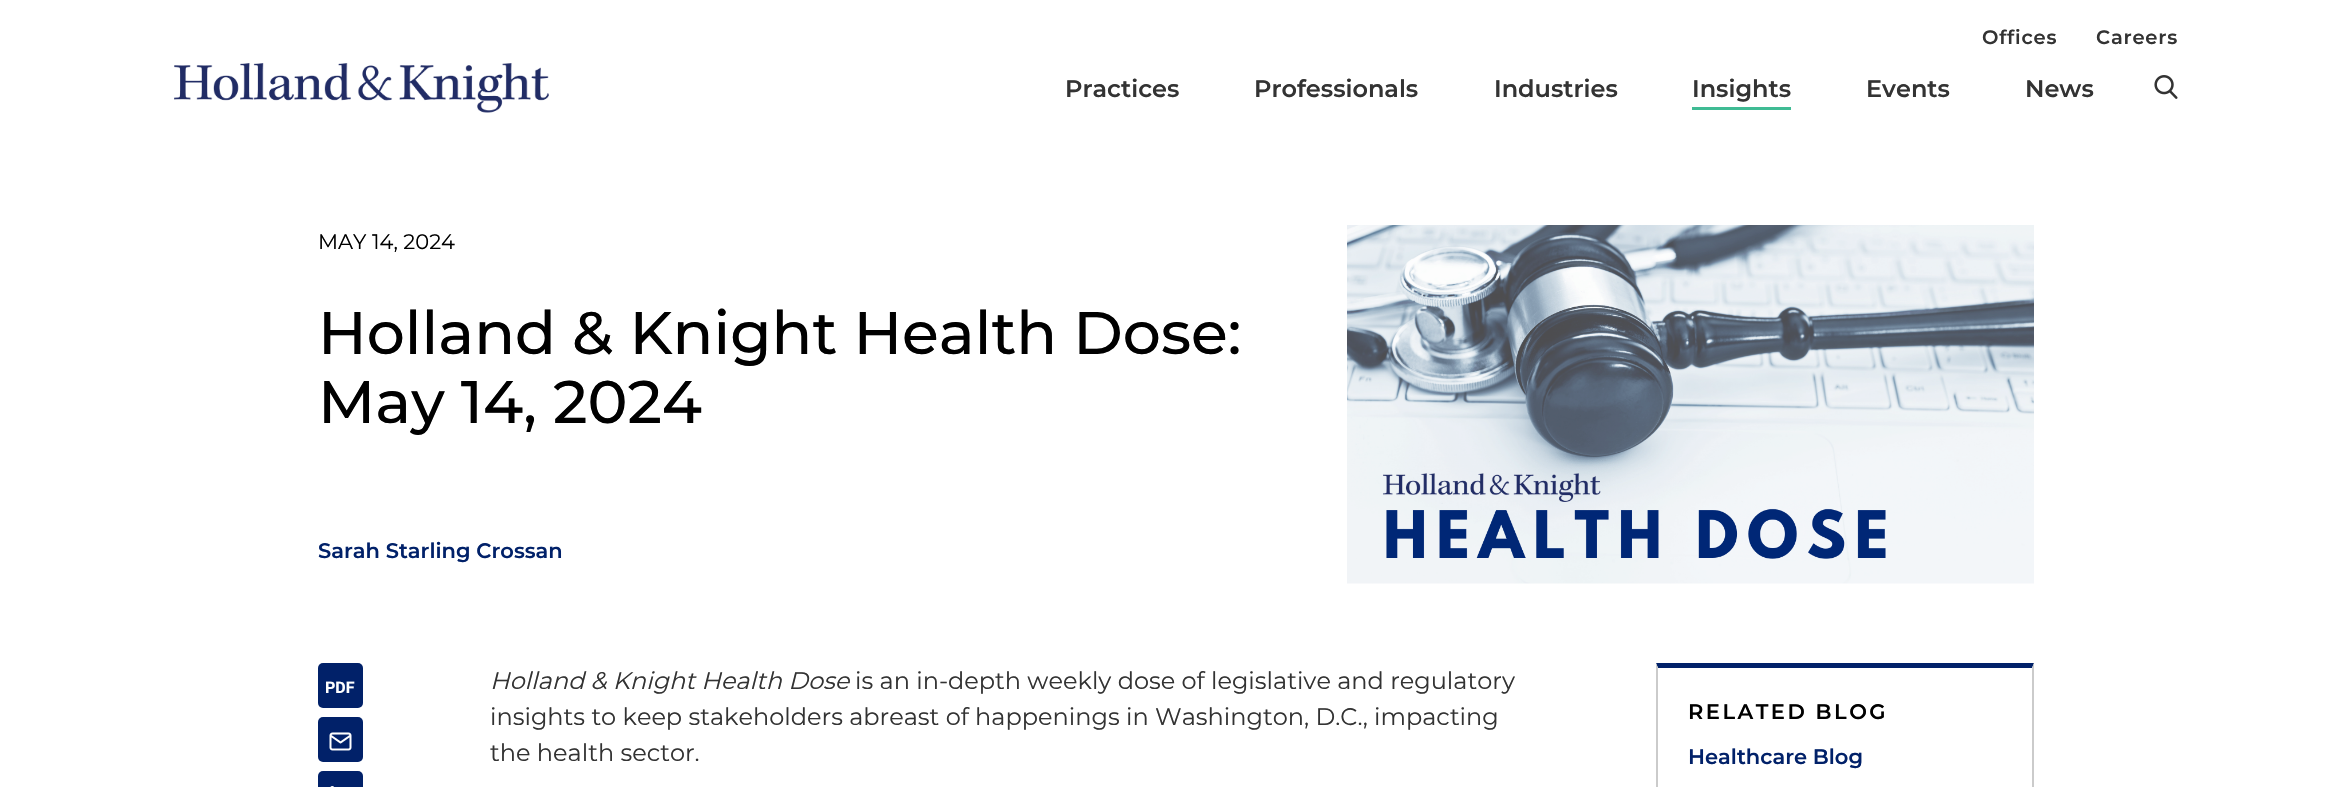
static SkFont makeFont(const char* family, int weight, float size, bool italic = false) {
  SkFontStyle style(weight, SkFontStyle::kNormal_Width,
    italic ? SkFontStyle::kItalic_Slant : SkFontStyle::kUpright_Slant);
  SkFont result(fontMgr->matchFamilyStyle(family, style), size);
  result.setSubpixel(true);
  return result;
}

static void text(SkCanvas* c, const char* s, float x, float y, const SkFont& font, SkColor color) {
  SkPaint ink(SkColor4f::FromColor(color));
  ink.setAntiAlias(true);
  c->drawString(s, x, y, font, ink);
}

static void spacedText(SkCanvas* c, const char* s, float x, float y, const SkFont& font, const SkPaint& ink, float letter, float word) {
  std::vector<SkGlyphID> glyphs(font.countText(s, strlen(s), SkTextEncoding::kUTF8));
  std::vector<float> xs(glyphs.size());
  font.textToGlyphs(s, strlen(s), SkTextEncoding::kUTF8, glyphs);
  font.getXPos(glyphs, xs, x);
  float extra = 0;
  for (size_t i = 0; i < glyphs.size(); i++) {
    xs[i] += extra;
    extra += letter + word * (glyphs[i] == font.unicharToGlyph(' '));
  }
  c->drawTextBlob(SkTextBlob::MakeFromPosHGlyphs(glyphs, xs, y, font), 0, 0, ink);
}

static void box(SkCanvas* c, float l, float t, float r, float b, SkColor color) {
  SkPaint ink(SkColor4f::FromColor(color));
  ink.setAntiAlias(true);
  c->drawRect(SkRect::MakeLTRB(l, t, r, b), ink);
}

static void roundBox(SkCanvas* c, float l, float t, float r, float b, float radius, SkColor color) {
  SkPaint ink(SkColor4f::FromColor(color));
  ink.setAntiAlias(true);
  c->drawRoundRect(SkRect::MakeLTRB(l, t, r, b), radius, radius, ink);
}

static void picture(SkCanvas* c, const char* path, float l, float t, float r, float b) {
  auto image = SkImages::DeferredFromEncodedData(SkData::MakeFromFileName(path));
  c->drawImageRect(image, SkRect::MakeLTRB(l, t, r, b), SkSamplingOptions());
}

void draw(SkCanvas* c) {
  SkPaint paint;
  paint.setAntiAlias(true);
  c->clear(0xffffffff);
  picture(c, "img_01.png", 174, 63, 549, 113);
  SkFont face1 = makeFont("Montserrat", 600, 19.5f);
  paint.setColor(0xff333333);
  spacedText(c, "Offices", 1982, 44, face1, paint, 0.75f, 0);
  spacedText(c, "Careers", 2096, 44, face1, paint, 0.75f, 0);
  SkFont face2 = makeFont("Montserrat", 600, 24);
  text(c, "Practices", 1065, 97, face2, 0xff333333);
  text(c, "Professionals", 1254, 97, face2, 0xff333333);
  text(c, "Industries", 1494, 97, face2, 0xff333333);
  text(c, "Insights", 1692, 97, face2, 0xff333333);
  box(c, 1692, 107, 1791, 110, 0xff3fbb94);
  text(c, "Events", 1866, 97, face2, 0xff333333);
  text(c, "News", 2025, 97, face2, 0xff333333);
  picture(c, "img_02.png", 2154, 75, 2178, 99);
  SkFont face3 = makeFont("Montserrat", 400, 21);
  text(c, "MAY 14, 2024", 318, 249, face3, 0xff000000);
  SkFont face4 = makeFont("Montserrat", 500, 60);
  text(c, "Holland & Knight Health Dose:", 318, 354, face4, 0xff000000);
  text(c, "May 14, 2024", 318, 423, face4, 0xff000000);
  SkFont face5 = makeFont("Montserrat", 600, 21);
  text(c, "Sarah Starling Crossan", 318, 558, face5, 0xff012169);
  picture(c, "img_03.png", 1347, 225, 2034, 584);
  roundBox(c, 318, 663, 363, 708, 5, 0xff012169);
  SkFont face6 = makeFont("Roboto", 700, 16);
  text(c, "PDF", 325, 693, face6, 0xffffffff);
  roundBox(c, 318, 717, 363, 762, 5, 0xff012169);
  picture(c, "img_04.png", 329, 732, 352, 751);
  roundBox(c, 318, 771, 363, 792, 5, 0xff012169);
  picture(c, "img_05.png", 330, 786, 334, 787);
  SkFont face7 = makeFont("Montserrat", 400, 24, true);
  text(c, "Holland & Knight Health Dose", 490, 689, face7, 0xff333333);
  SkFont face8 = makeFont("Montserrat", 400, 24);
  text(c, "is an in-depth weekly dose of legislative and regulatory", 855, 689, face8, 0xff333333);
  text(c, "insights to keep stakeholders abreast of happenings in Washington, D.C., impacting", 490, 725, face8, 0xff333333);
  text(c, "the health sector.", 490, 761, face8, 0xff333333);
  paint.setColor(0xff012169);
  c->drawPath(SkPathBuilder().moveTo(1656, 663).lineTo(2034, 663).lineTo(2032, 668).lineTo(1658, 668).close().detach(), paint);
  paint.setColor(0xffcbcbcb);
  c->drawPath(SkPathBuilder().moveTo(2034, 663).lineTo(2034, 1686).lineTo(2032, 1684).lineTo(2032, 668).close().detach(), paint);
  c->drawPath(SkPathBuilder().moveTo(1656, 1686).lineTo(1656, 663).lineTo(1658, 668).lineTo(1658, 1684).close().detach(), paint);
  paint.setColor(0xff000000);
  spacedText(c, "RELATED BLOG", 1688, 719, face5, paint, 2.5f, 0);
  text(c, "Healthcare Blog", 1688, 764, face5, 0xff012169);
}
